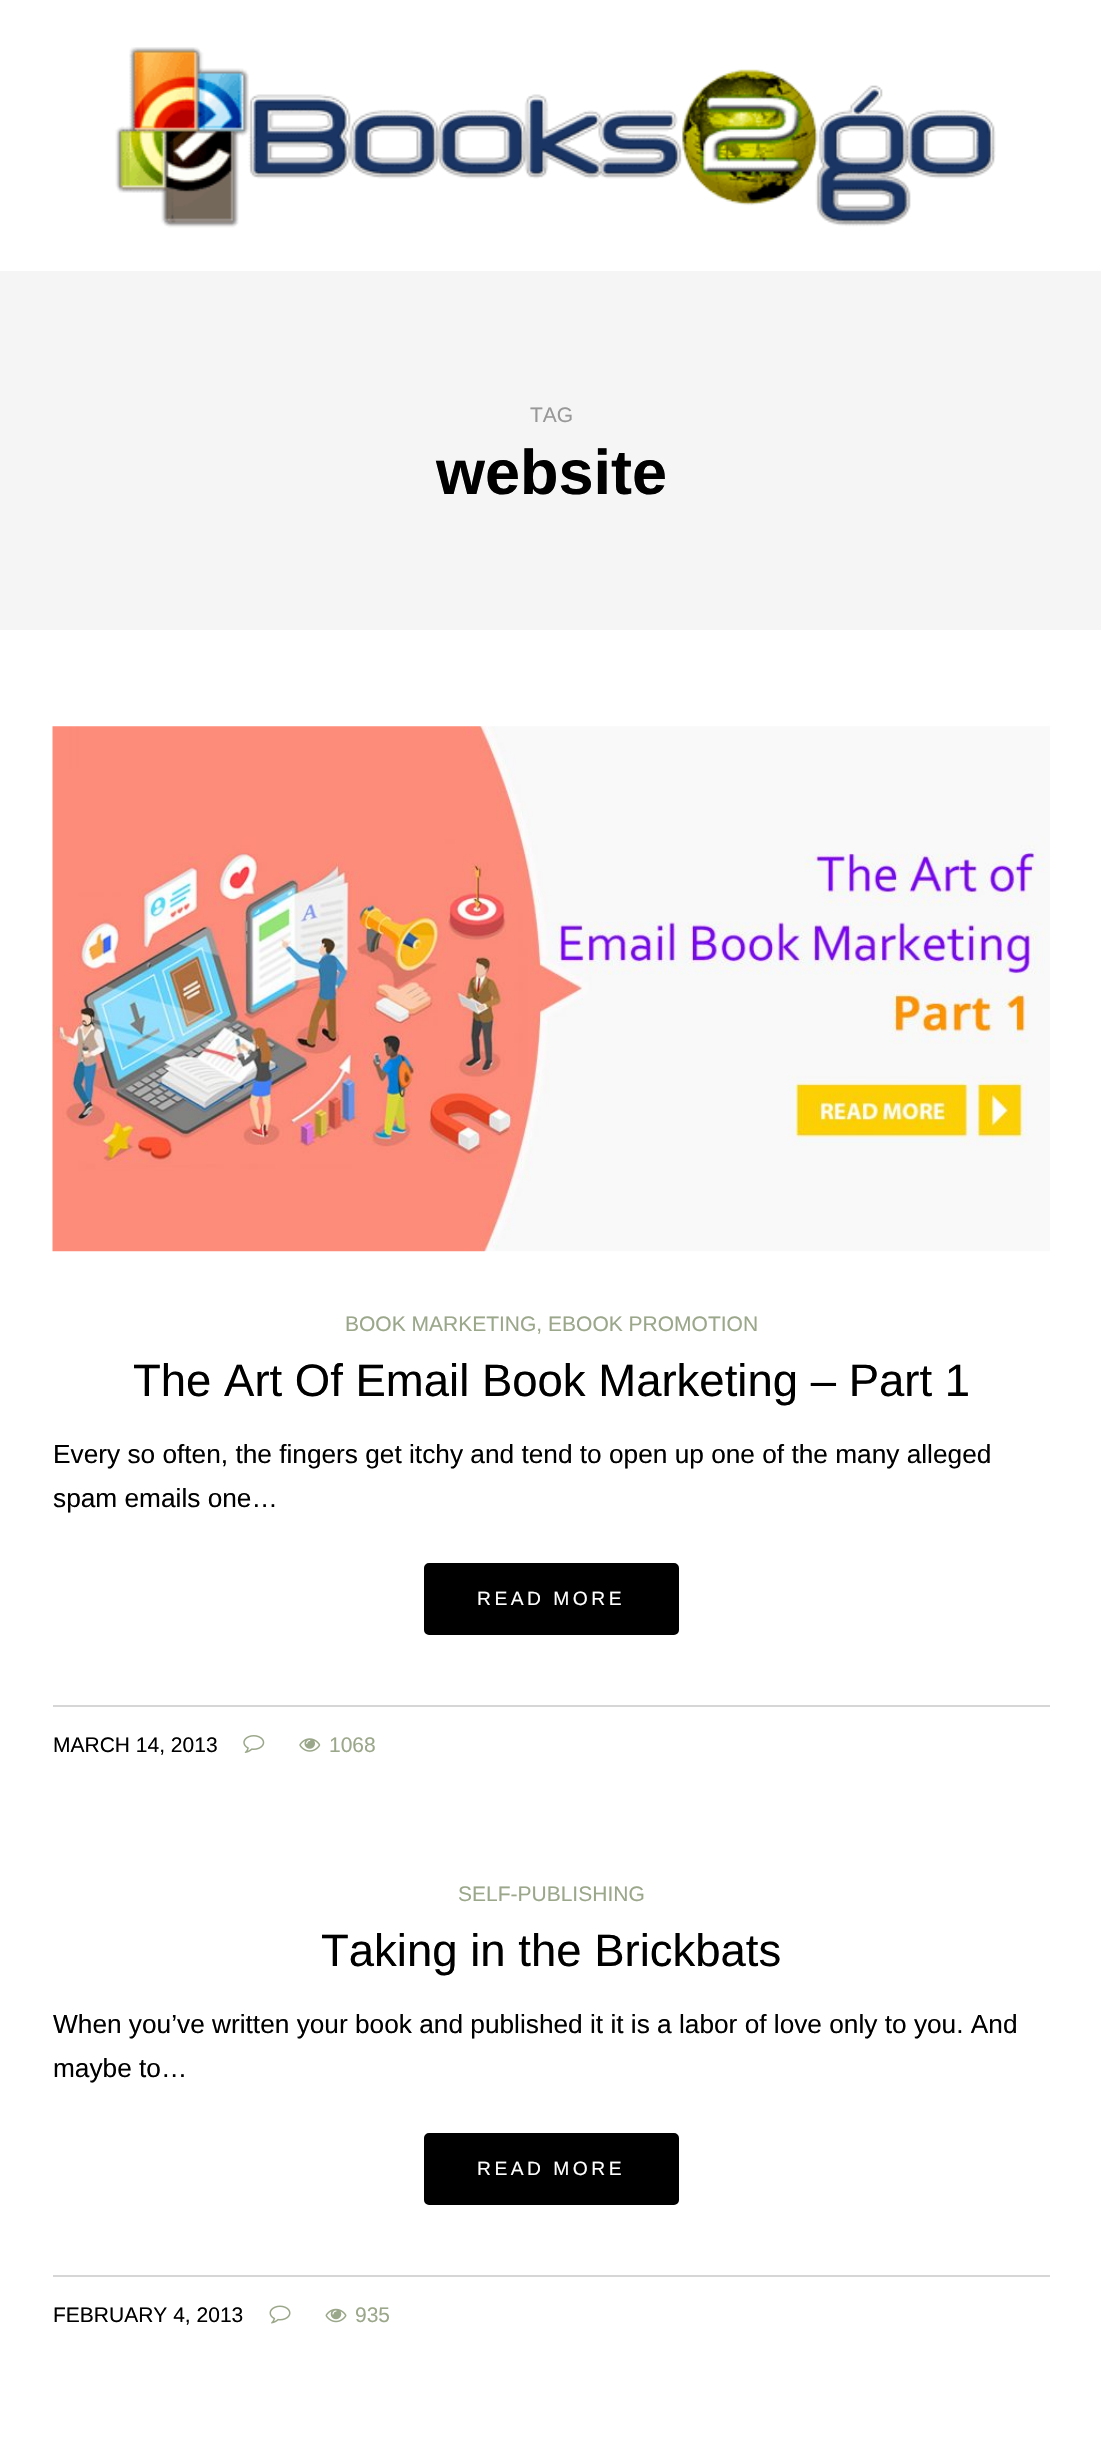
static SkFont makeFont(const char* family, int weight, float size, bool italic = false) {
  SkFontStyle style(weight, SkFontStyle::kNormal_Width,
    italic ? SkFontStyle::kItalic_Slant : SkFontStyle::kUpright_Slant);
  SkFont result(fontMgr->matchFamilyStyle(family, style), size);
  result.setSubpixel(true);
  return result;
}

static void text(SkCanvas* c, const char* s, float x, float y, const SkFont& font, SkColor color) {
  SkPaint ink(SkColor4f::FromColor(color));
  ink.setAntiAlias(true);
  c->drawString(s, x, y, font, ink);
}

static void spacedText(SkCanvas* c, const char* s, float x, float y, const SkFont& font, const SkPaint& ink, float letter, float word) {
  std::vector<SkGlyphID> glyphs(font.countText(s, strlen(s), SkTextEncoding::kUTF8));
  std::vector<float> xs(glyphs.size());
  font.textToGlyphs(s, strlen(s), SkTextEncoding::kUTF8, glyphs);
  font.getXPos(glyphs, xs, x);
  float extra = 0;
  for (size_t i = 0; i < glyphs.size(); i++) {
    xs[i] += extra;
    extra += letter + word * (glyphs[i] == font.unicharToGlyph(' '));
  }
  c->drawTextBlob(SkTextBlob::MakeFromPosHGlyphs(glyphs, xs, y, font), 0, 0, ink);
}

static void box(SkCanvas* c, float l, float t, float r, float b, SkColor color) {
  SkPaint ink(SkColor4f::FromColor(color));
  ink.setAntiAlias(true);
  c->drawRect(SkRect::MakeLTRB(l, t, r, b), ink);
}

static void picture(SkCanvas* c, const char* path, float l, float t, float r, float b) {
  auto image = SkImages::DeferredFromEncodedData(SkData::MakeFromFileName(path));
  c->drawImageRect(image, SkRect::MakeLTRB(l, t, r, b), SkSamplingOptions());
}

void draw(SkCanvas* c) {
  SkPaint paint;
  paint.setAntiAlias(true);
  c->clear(0xffffffff);
  picture(c, "img_01.png", 115, 47, 996, 228);
  box(c, 0, 271, 1101, 630, 0xfff5f5f5);
  SkFont face1 = makeFont("Liberation Sans", 400, 21);
  text(c, "TAG", 530, 422, face1, 0xff989898);
  SkFont face2 = makeFont("Liberation Sans", 700, 63);
  text(c, "website", 436, 494, face2, 0xff000000);
  picture(c, "img_02.png", 52, 726, 1050, 1252);
  text(c, "BOOK MARKETING, EBOOK PROMOTION", 345, 1331, face1, 0xff9ba78a);
  SkFont face3 = makeFont("Liberation Sans", 400, 45.5f);
  text(c, "The Art Of Email Book Marketing – Part 1", 133, 1396, face3, 0xff000000);
  SkFont face4 = makeFont("Liberation Sans", 400, 26.25f);
  text(c, "Every so often, the fingers get itchy and tend to open up one of the many alleged", 53, 1463, face4, 0xff000000);
  text(c, "spam emails one…", 53, 1507, face4, 0xff000000);
  paint.setColor(0xff000000);
  c->drawRoundRect(SkRect::MakeLTRB(425, 1564, 678, 1634), 4, 4, paint);
  paint.setStyle(SkPaint::kStroke_Style);
  paint.setStrokeWidth(2);
  c->drawRoundRect(SkRect::MakeLTRB(425, 1564, 678, 1634), 4, 4, paint);
  SkFont face5 = makeFont("Liberation Sans", 400, 19.25f);
  paint.setStyle(SkPaint::kFill_Style);
  paint.setColor(0xffffffff);
  spacedText(c, "READ MORE", 477, 1605, face5, paint, 3.5f, 0);
  box(c, 53, 1705, 1050, 1707, 0xffd6d6d6);
  text(c, "MARCH 14, 2013", 53, 1752, face1, 0xff000000);
  picture(c, "img_03.png", 243, 1735, 265, 1753);
  picture(c, "img_04.png", 299, 1738, 321, 1752);
  text(c, "1068", 329, 1752, face1, 0xff9ba78a);
  text(c, "SELF-PUBLISHING", 458, 1901, face1, 0xff9ba78a);
  text(c, "Taking in the Brickbats", 321, 1966, face3, 0xff000000);
  text(c, "When you’ve written your book and published it it is a labor of love only to you. And", 53, 2033, face4, 0xff000000);
  text(c, "maybe to…", 53, 2077, face4, 0xff000000);
  paint.setColor(0xff000000);
  c->drawRoundRect(SkRect::MakeLTRB(425, 2134, 678, 2204), 4, 4, paint);
  paint.setStyle(SkPaint::kStroke_Style);
  c->drawRoundRect(SkRect::MakeLTRB(425, 2134, 678, 2204), 4, 4, paint);
  paint.setStyle(SkPaint::kFill_Style);
  paint.setColor(0xffffffff);
  spacedText(c, "READ MORE", 477, 2175, face5, paint, 3.5f, 0);
  box(c, 53, 2275, 1050, 2277, 0xffd6d6d6);
  text(c, "FEBRUARY 4, 2013", 53, 2322, face1, 0xff000000);
  picture(c, "img_05.png", 269, 2305, 291, 2324);
  picture(c, "img_06.png", 325, 2308, 347, 2323);
  text(c, "935", 355, 2322, face1, 0xff9ba78a);
}
